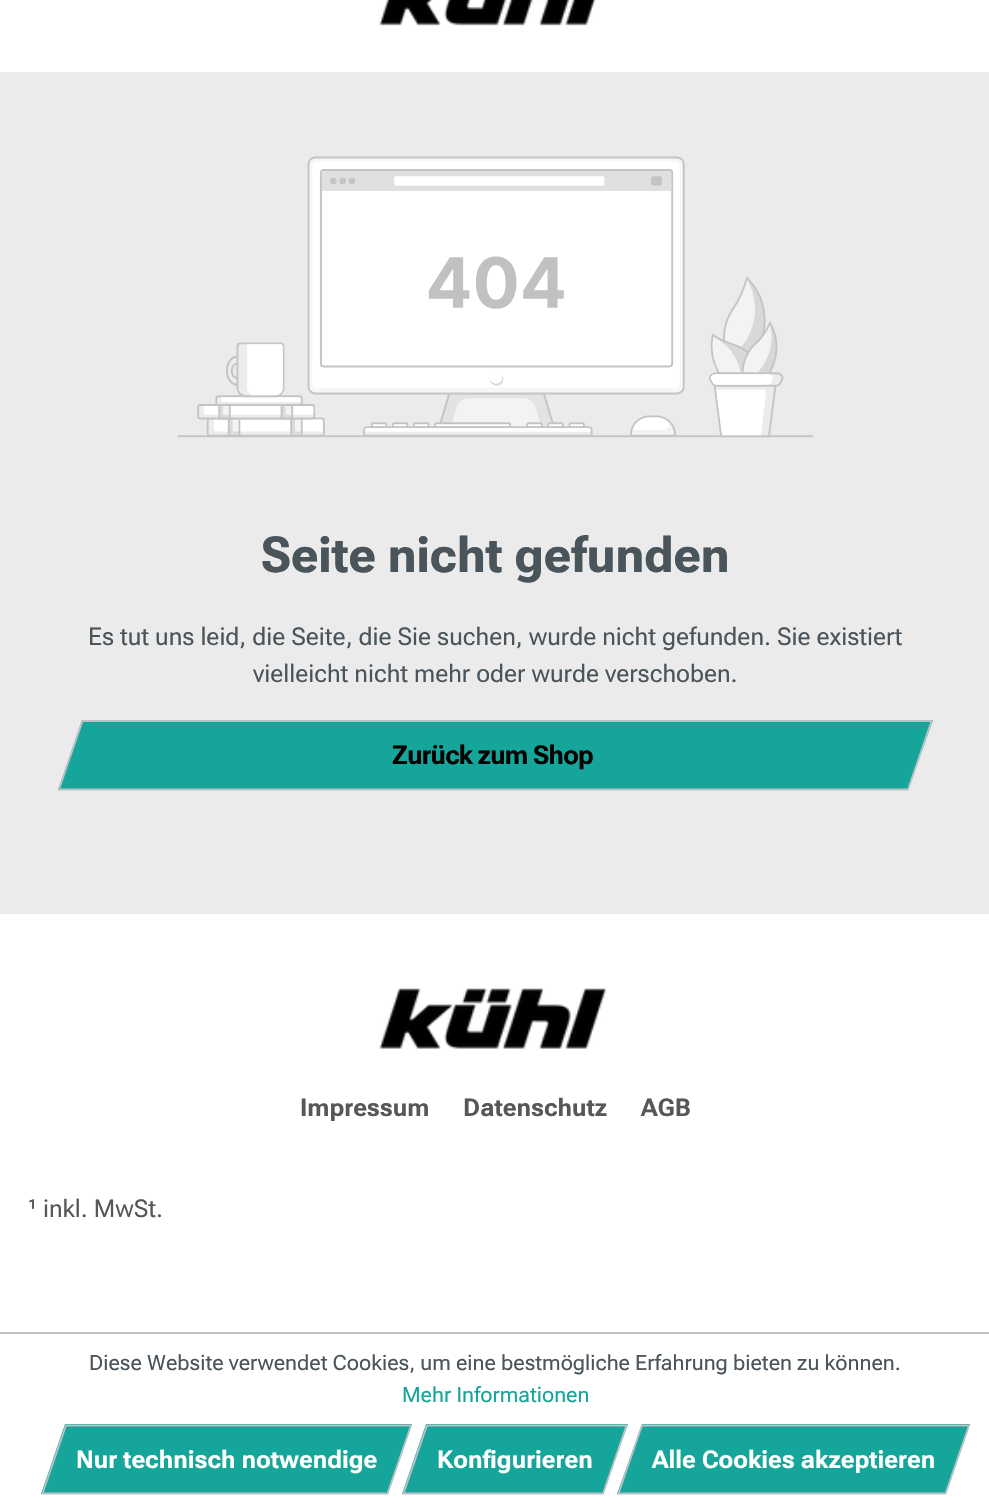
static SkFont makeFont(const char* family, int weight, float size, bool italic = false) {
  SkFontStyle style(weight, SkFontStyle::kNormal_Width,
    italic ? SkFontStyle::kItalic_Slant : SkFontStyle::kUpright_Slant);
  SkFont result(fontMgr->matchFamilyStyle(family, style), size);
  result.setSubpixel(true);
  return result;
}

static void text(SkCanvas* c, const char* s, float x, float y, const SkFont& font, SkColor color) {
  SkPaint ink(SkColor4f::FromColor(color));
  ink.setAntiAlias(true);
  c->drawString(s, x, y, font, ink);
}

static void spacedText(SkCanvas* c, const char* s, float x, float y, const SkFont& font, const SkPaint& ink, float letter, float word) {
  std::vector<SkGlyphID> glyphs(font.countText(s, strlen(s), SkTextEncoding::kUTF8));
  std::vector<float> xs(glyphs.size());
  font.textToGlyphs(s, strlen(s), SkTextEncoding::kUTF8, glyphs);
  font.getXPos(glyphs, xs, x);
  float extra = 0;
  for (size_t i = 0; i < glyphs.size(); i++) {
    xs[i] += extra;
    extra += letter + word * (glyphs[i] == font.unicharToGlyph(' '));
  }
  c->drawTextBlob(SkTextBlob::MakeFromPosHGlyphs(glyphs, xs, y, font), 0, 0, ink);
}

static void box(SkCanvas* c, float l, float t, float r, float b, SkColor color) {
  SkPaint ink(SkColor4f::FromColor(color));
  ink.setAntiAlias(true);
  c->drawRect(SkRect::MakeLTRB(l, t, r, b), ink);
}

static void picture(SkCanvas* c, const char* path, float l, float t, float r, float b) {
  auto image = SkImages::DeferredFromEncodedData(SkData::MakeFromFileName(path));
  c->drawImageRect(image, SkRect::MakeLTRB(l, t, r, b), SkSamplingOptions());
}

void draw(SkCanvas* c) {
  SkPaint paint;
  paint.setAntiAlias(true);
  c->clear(0xffebebeb);
  box(c, 0, 0, 989, 72, 0xffffffff);
  picture(c, "img_01.png", 379, 0, 596, 26);
  picture(c, "img_02.png", 177, 156, 814, 438);
  SkFont face1 = makeFont("Roboto Flex", 700, 49.75f);
  text(c, "Seite nicht gefunden", 261, 572, face1, 0xff4a545b);
  SkFont face2 = makeFont("Roboto Flex", 400, 24.5f);
  text(c, "Es tut uns leid, die Seite, die Sie suchen, wurde nicht gefunden. Sie existiert", 88, 645, face2, 0xff4a545b);
  text(c, "vielleicht nicht mehr oder wurde verschoben.", 253, 682, face2, 0xff4a545b);
  paint.setColor(0xff16a59a);
  c->drawPath(SkPathBuilder().moveTo(82, 720).lineTo(933, 720).lineTo(908, 790).lineTo(58, 790).close().detach(), paint);
  paint.setStyle(SkPaint::kStroke_Style);
  paint.setStrokeWidth(1.8f);
  paint.setColor(0xffbcc1c7);
  c->drawPath(SkPathBuilder().moveTo(82.5f, 721).lineTo(931.5f, 721).lineTo(908, 789.5f).lineTo(59, 789.5f).close().detach(), paint);
  SkFont face3 = makeFont("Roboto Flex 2", 700, 26);
  paint.setStyle(SkPaint::kFill_Style);
  paint.setColor(0xff000000);
  spacedText(c, "Zurück zum Shop", 392, 764, face3, paint, -0.75f, 0);
  box(c, 0, 914, 989, 1332, 0xffffffff);
  picture(c, "img_03.png", 379, 988, 606, 1049);
  SkFont face4 = makeFont("Roboto Flex 2", 700, 24.5f);
  text(c, "Impressum", 300, 1116, face4, 0xff575756);
  text(c, "Datenschutz", 463, 1116, face4, 0xff575756);
  text(c, "AGB", 641, 1116, face4, 0xff575756);
  text(c, "¹ inkl. MwSt.", 28, 1217, face2, 0xff575756);
  box(c, 0, 1334, 989, 1508, 0xffffffff);
  box(c, 0, 1332, 989, 1334, 0xffbcc1c7);
  SkFont face5 = makeFont("Roboto Flex 2", 400, 21);
  text(c, "Diese Website verwendet Cookies, um eine bestmögliche Erfahrung bieten zu können.", 89, 1370, face5, 0xff4a545b);
  text(c, "Mehr Informationen", 402, 1402, face5, 0xff16a59a);
  paint.setColor(0xff16a59a);
  c->drawPath(SkPathBuilder().moveTo(65, 1424).lineTo(412, 1424).lineTo(388, 1494).lineTo(41, 1494).close().detach(), paint);
  paint.setStyle(SkPaint::kStroke_Style);
  paint.setColor(0xffbcc1c7);
  c->drawPath(SkPathBuilder().moveTo(66, 1425.5f).lineTo(411, 1425.5f).lineTo(387.5f, 1493.5f).lineTo(42.5f, 1493.5f).close().detach(), paint);
  text(c, "Nur technisch notwendige", 76, 1468, face4, 0xffffffff);
  paint.setStyle(SkPaint::kFill_Style);
  paint.setColor(0xff16a59a);
  c->drawPath(SkPathBuilder().moveTo(426, 1424).lineTo(628, 1424).lineTo(603, 1494).lineTo(402, 1494).close().detach(), paint);
  paint.setStyle(SkPaint::kStroke_Style);
  paint.setColor(0xffbcc1c7);
  c->drawPath(SkPathBuilder().moveTo(427, 1425.5f).lineTo(626.5f, 1425.5f).lineTo(603, 1493.5f).lineTo(403.5f, 1493.5f).close().detach(), paint);
  text(c, "Konfigurieren", 437, 1468, face4, 0xffffffff);
  paint.setStyle(SkPaint::kFill_Style);
  paint.setColor(0xff16a59a);
  c->drawPath(SkPathBuilder().moveTo(642, 1424).lineTo(970, 1424).lineTo(946, 1494).lineTo(617, 1494).close().detach(), paint);
  paint.setStyle(SkPaint::kStroke_Style);
  paint.setColor(0xffbcc1c7);
  c->drawPath(SkPathBuilder().moveTo(642, 1425.5f).lineTo(969, 1425.5f).lineTo(945.5f, 1493.5f).lineTo(618.5f, 1493.5f).close().detach(), paint);
  text(c, "Alle Cookies akzeptieren", 652, 1468, face4, 0xffffffff);
}
